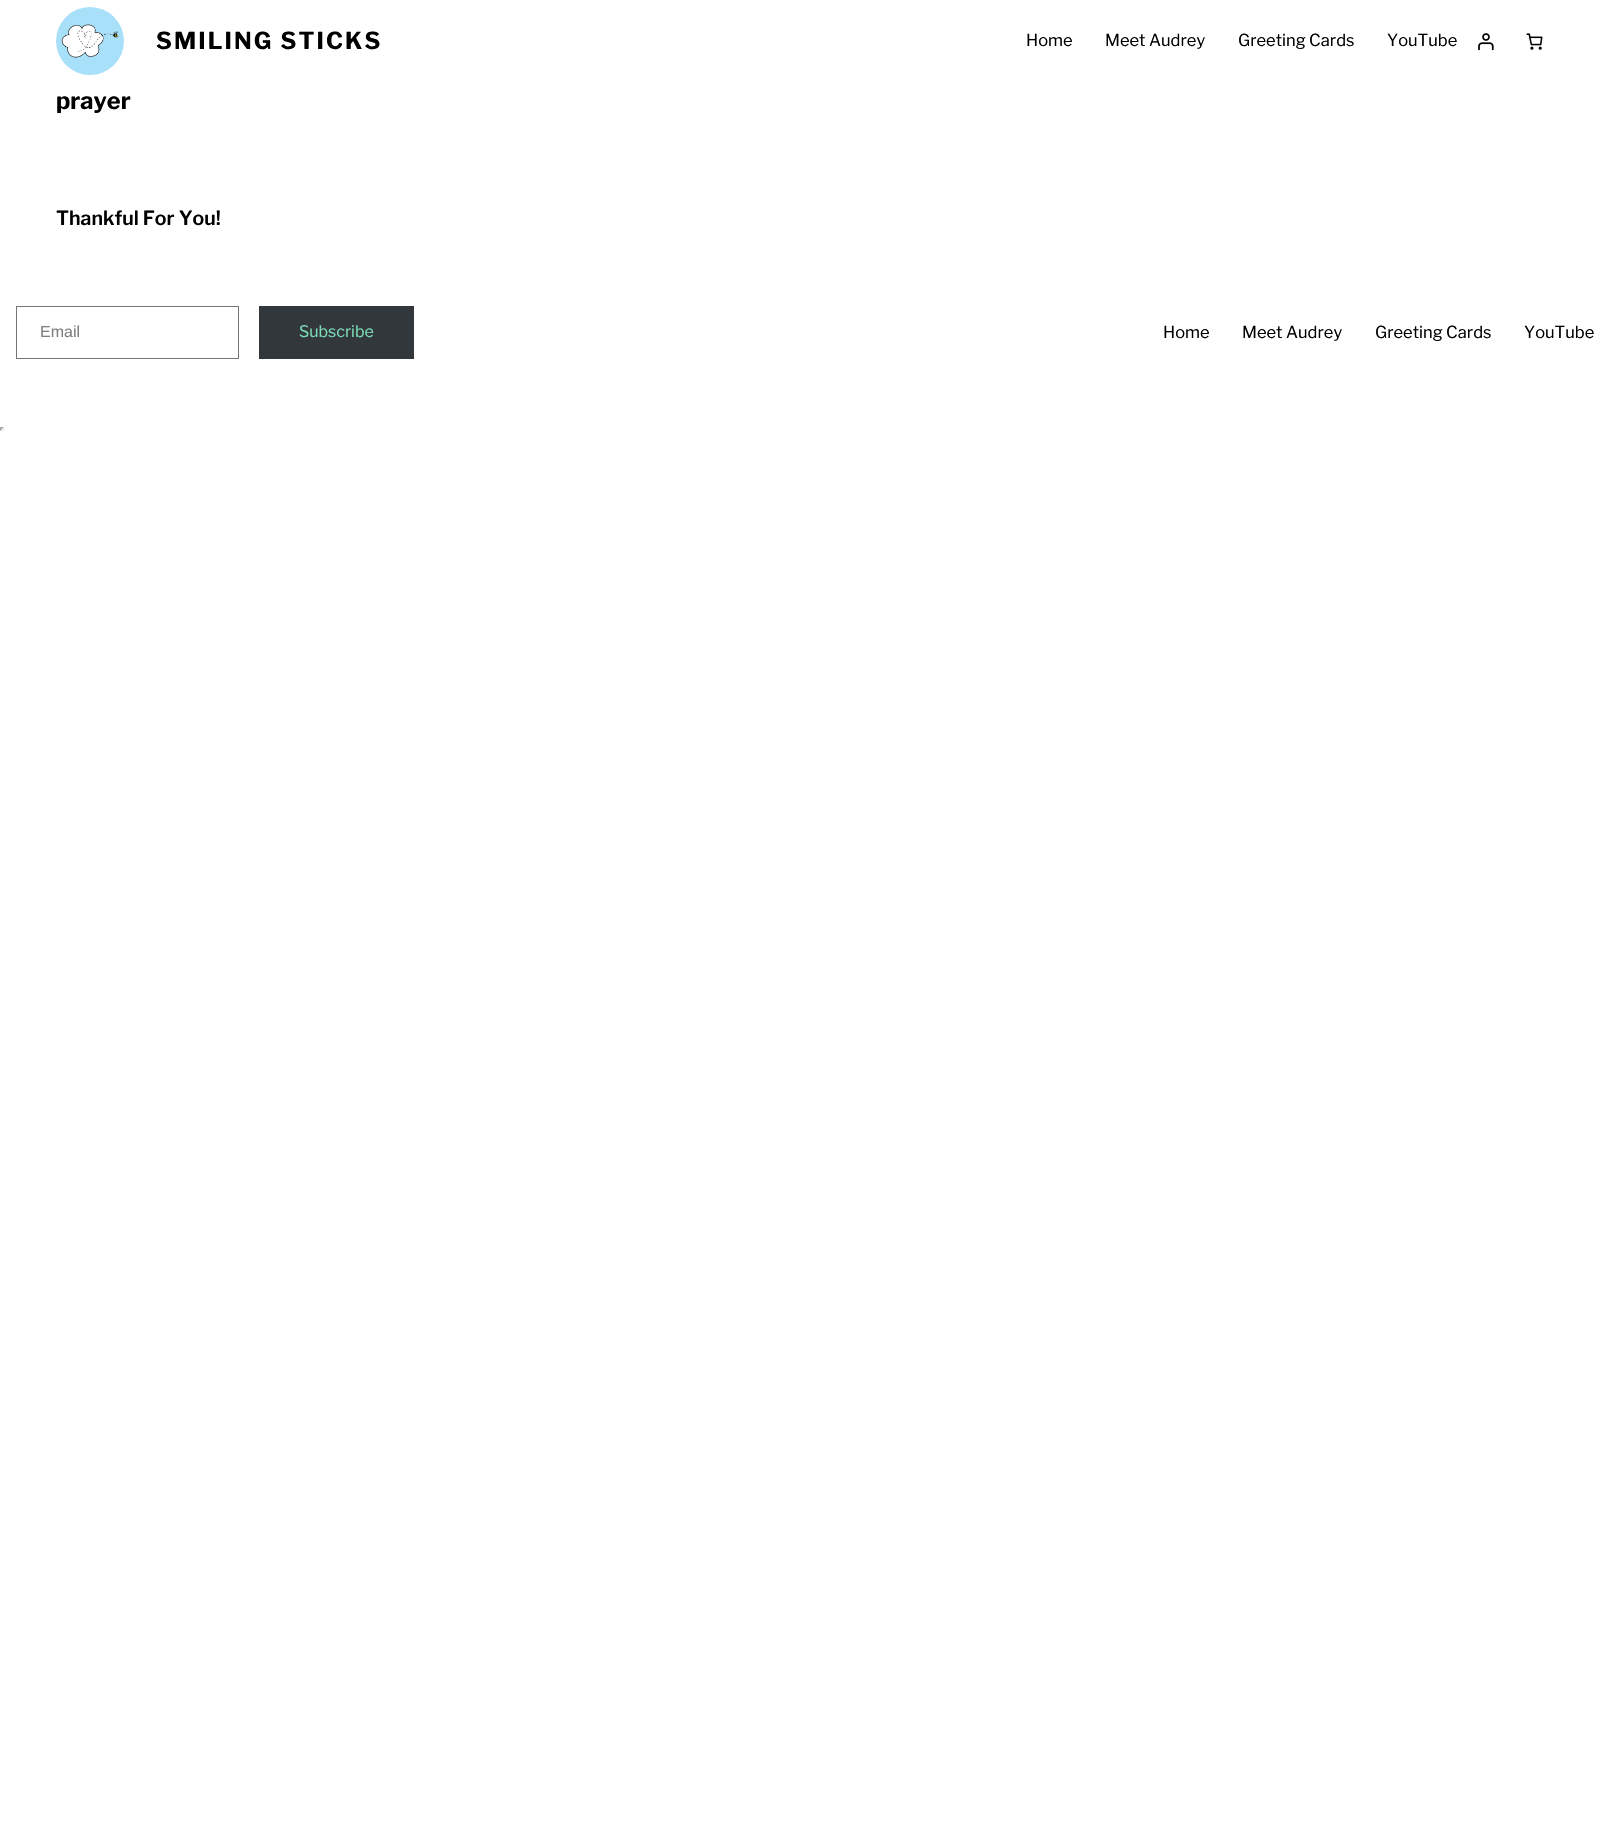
static SkFont makeFont(const char* family, int weight, float size, bool italic = false) {
  SkFontStyle style(weight, SkFontStyle::kNormal_Width,
    italic ? SkFontStyle::kItalic_Slant : SkFontStyle::kUpright_Slant);
  SkFont result(fontMgr->matchFamilyStyle(family, style), size);
  result.setSubpixel(true);
  return result;
}

static void text(SkCanvas* c, const char* s, float x, float y, const SkFont& font, SkColor color) {
  SkPaint ink(SkColor4f::FromColor(color));
  ink.setAntiAlias(true);
  c->drawString(s, x, y, font, ink);
}

static void spacedText(SkCanvas* c, const char* s, float x, float y, const SkFont& font, const SkPaint& ink, float letter, float word) {
  std::vector<SkGlyphID> glyphs(font.countText(s, strlen(s), SkTextEncoding::kUTF8));
  std::vector<float> xs(glyphs.size());
  font.textToGlyphs(s, strlen(s), SkTextEncoding::kUTF8, glyphs);
  font.getXPos(glyphs, xs, x);
  float extra = 0;
  for (size_t i = 0; i < glyphs.size(); i++) {
    xs[i] += extra;
    extra += letter + word * (glyphs[i] == font.unicharToGlyph(' '));
  }
  c->drawTextBlob(SkTextBlob::MakeFromPosHGlyphs(glyphs, xs, y, font), 0, 0, ink);
}

static void box(SkCanvas* c, float l, float t, float r, float b, SkColor color) {
  SkPaint ink(SkColor4f::FromColor(color));
  ink.setAntiAlias(true);
  c->drawRect(SkRect::MakeLTRB(l, t, r, b), ink);
}

static void picture(SkCanvas* c, const char* path, float l, float t, float r, float b) {
  auto image = SkImages::DeferredFromEncodedData(SkData::MakeFromFileName(path));
  c->drawImageRect(image, SkRect::MakeLTRB(l, t, r, b), SkSamplingOptions());
}

void draw(SkCanvas* c) {
  SkPaint paint;
  paint.setAntiAlias(true);
  c->clear(0xffffffff);
  picture(c, "img_01.png", 56, 7, 124, 75);
  SkFont face1 = makeFont("Libre Franklin", 700, 23.4f);
  paint.setColor(0xff000000);
  spacedText(c, "SMILING STICKS", 156, 49, face1, paint, 2.1f, 0);
  SkFont face2 = makeFont("Libre Franklin", 400, 16.5f);
  text(c, "Home", 1026, 46, face2, 0xff000000);
  text(c, "Meet Audrey", 1105, 46, face2, 0xff000000);
  text(c, "Greeting Cards", 1238, 46, face2, 0xff000000);
  text(c, "YouTube", 1387, 46, face2, 0xff000000);
  picture(c, "img_02.png", 1478, 33, 1494, 51);
  picture(c, "img_03.png", 1526, 33, 1543, 50);
  SkFont face3 = makeFont("Libre Franklin", 700, 23.5f);
  text(c, "prayer", 56, 109, face3, 0xff000000);
  SkFont face4 = makeFont("Libre Franklin", 600, 19.5f);
  text(c, "Thankful For You!", 56, 225, face4, 0xff000000);
  paint.setStyle(SkPaint::kStroke_Style);
  paint.setStrokeWidth(1);
  paint.setColor(0xff767676);
  c->drawRect(SkRect::MakeLTRB(16.5f, 306.5f, 238.5f, 358.5f), paint);
  SkFont face5 = makeFont("Liberation Sans", 400, 16);
  text(c, "Email", 40, 337, face5, 0xff808080);
  box(c, 259, 306, 414, 359, 0xff32373c);
  SkFont face6 = makeFont("Libre Franklin", 400, 16);
  text(c, "Subscribe", 299, 337, face6, 0xff7bdcb5);
  text(c, "Home", 1163, 338, face2, 0xff000000);
  text(c, "Meet Audrey", 1242, 338, face2, 0xff000000);
  text(c, "Greeting Cards", 1375, 338, face2, 0xff000000);
  text(c, "YouTube", 1524, 338, face2, 0xff000000);
  paint.setStyle(SkPaint::kFill_Style);
  paint.setColor(0xff9f9f9f);
  c->drawPath(SkPathBuilder().moveTo(0, 427).lineTo(4, 427).lineTo(2, 429).close().detach(), paint);
  paint.setColor(0xffeeeeee);
  c->drawPath(SkPathBuilder().moveTo(4, 427).lineTo(4, 431).lineTo(2, 429).close().detach(), paint);
  c->drawPath(SkPathBuilder().moveTo(4, 431).lineTo(0, 431).lineTo(2, 429).close().detach(), paint);
  paint.setColor(0xff9f9f9f);
  c->drawPath(SkPathBuilder().moveTo(0, 431).lineTo(0, 427).lineTo(2, 429).close().detach(), paint);
}
